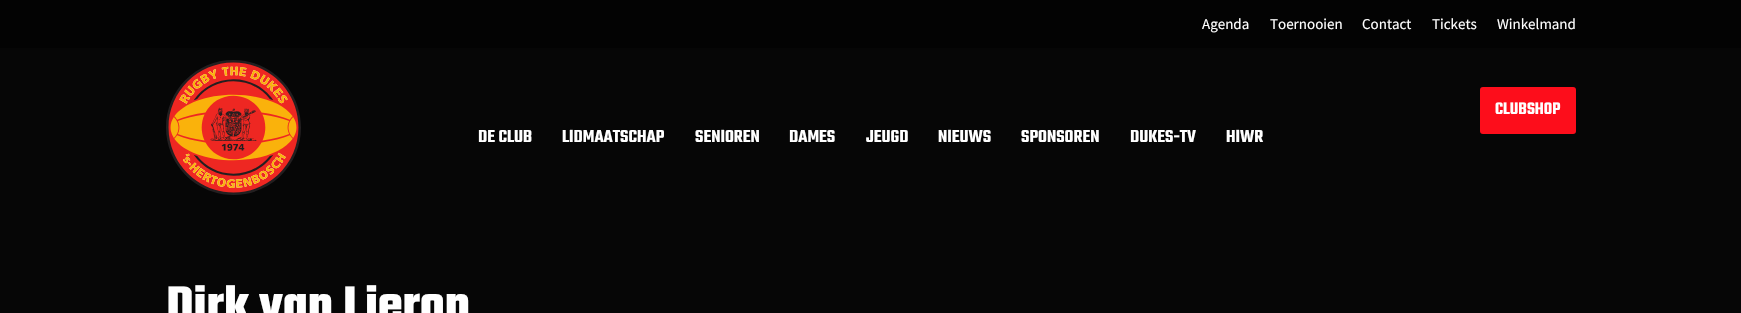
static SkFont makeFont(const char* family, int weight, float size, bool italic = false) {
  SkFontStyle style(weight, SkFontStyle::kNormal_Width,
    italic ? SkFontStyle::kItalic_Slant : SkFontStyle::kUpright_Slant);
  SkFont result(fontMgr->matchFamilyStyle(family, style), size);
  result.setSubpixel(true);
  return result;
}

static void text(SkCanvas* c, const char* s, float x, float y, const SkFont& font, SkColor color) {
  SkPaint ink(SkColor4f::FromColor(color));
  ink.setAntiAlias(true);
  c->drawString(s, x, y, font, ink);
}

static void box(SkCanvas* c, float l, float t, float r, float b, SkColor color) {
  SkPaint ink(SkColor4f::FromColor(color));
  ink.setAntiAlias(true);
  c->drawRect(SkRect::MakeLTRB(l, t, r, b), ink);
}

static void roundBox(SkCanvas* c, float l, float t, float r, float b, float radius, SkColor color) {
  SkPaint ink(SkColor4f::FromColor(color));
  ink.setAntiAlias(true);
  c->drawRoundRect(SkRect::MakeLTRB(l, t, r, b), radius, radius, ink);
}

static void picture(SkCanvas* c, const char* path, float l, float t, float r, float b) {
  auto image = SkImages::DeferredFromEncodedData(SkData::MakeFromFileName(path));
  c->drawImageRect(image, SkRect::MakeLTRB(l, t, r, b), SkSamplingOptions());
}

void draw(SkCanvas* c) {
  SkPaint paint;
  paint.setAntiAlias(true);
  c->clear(0xff060606);
  box(c, 0, 0, 1741, 48, 0xff030303);
  SkFont face1 = makeFont("Source Sans Pro", 400, 15);
  text(c, "Agenda", 1202, 29, face1, 0xffffffff);
  text(c, "Toernooien", 1270, 29, face1, 0xffffffff);
  text(c, "Contact", 1362, 29, face1, 0xffffffff);
  text(c, "Tickets", 1432, 29, face1, 0xffffffff);
  text(c, "Winkelmand", 1497, 29, face1, 0xffffffff);
  picture(c, "img_01.png", 166, 60, 301, 195);
  roundBox(c, 1480, 87, 1576, 134, 3, 0xfffd0d1b);
  SkFont face2 = makeFont("Teko", 600, 18);
  text(c, "CLUBSHOP", 1495, 114, face2, 0xffffffff);
  SkFont face3 = makeFont("Teko", 600, 19);
  text(c, "DE CLUB", 478, 142, face3, 0xffffffff);
  text(c, "LIDMAATSCHAP", 562, 142, face3, 0xffffffff);
  text(c, "SENIOREN", 695, 142, face3, 0xffffffff);
  text(c, "DAMES", 789, 142, face3, 0xffffffff);
  text(c, "JEUGD", 866, 142, face3, 0xffffffff);
  text(c, "NIEUWS", 938, 142, face3, 0xffffffff);
  text(c, "SPONSOREN", 1021, 142, face3, 0xffffffff);
  text(c, "DUKES-TV", 1130, 142, face3, 0xffffffff);
  text(c, "HIWR", 1226, 142, face3, 0xffffffff);
  SkFont face4 = makeFont("Teko", 700, 52);
  text(c, "Dirk van Lierop", 166, 320, face4, 0xffffffff);
}
